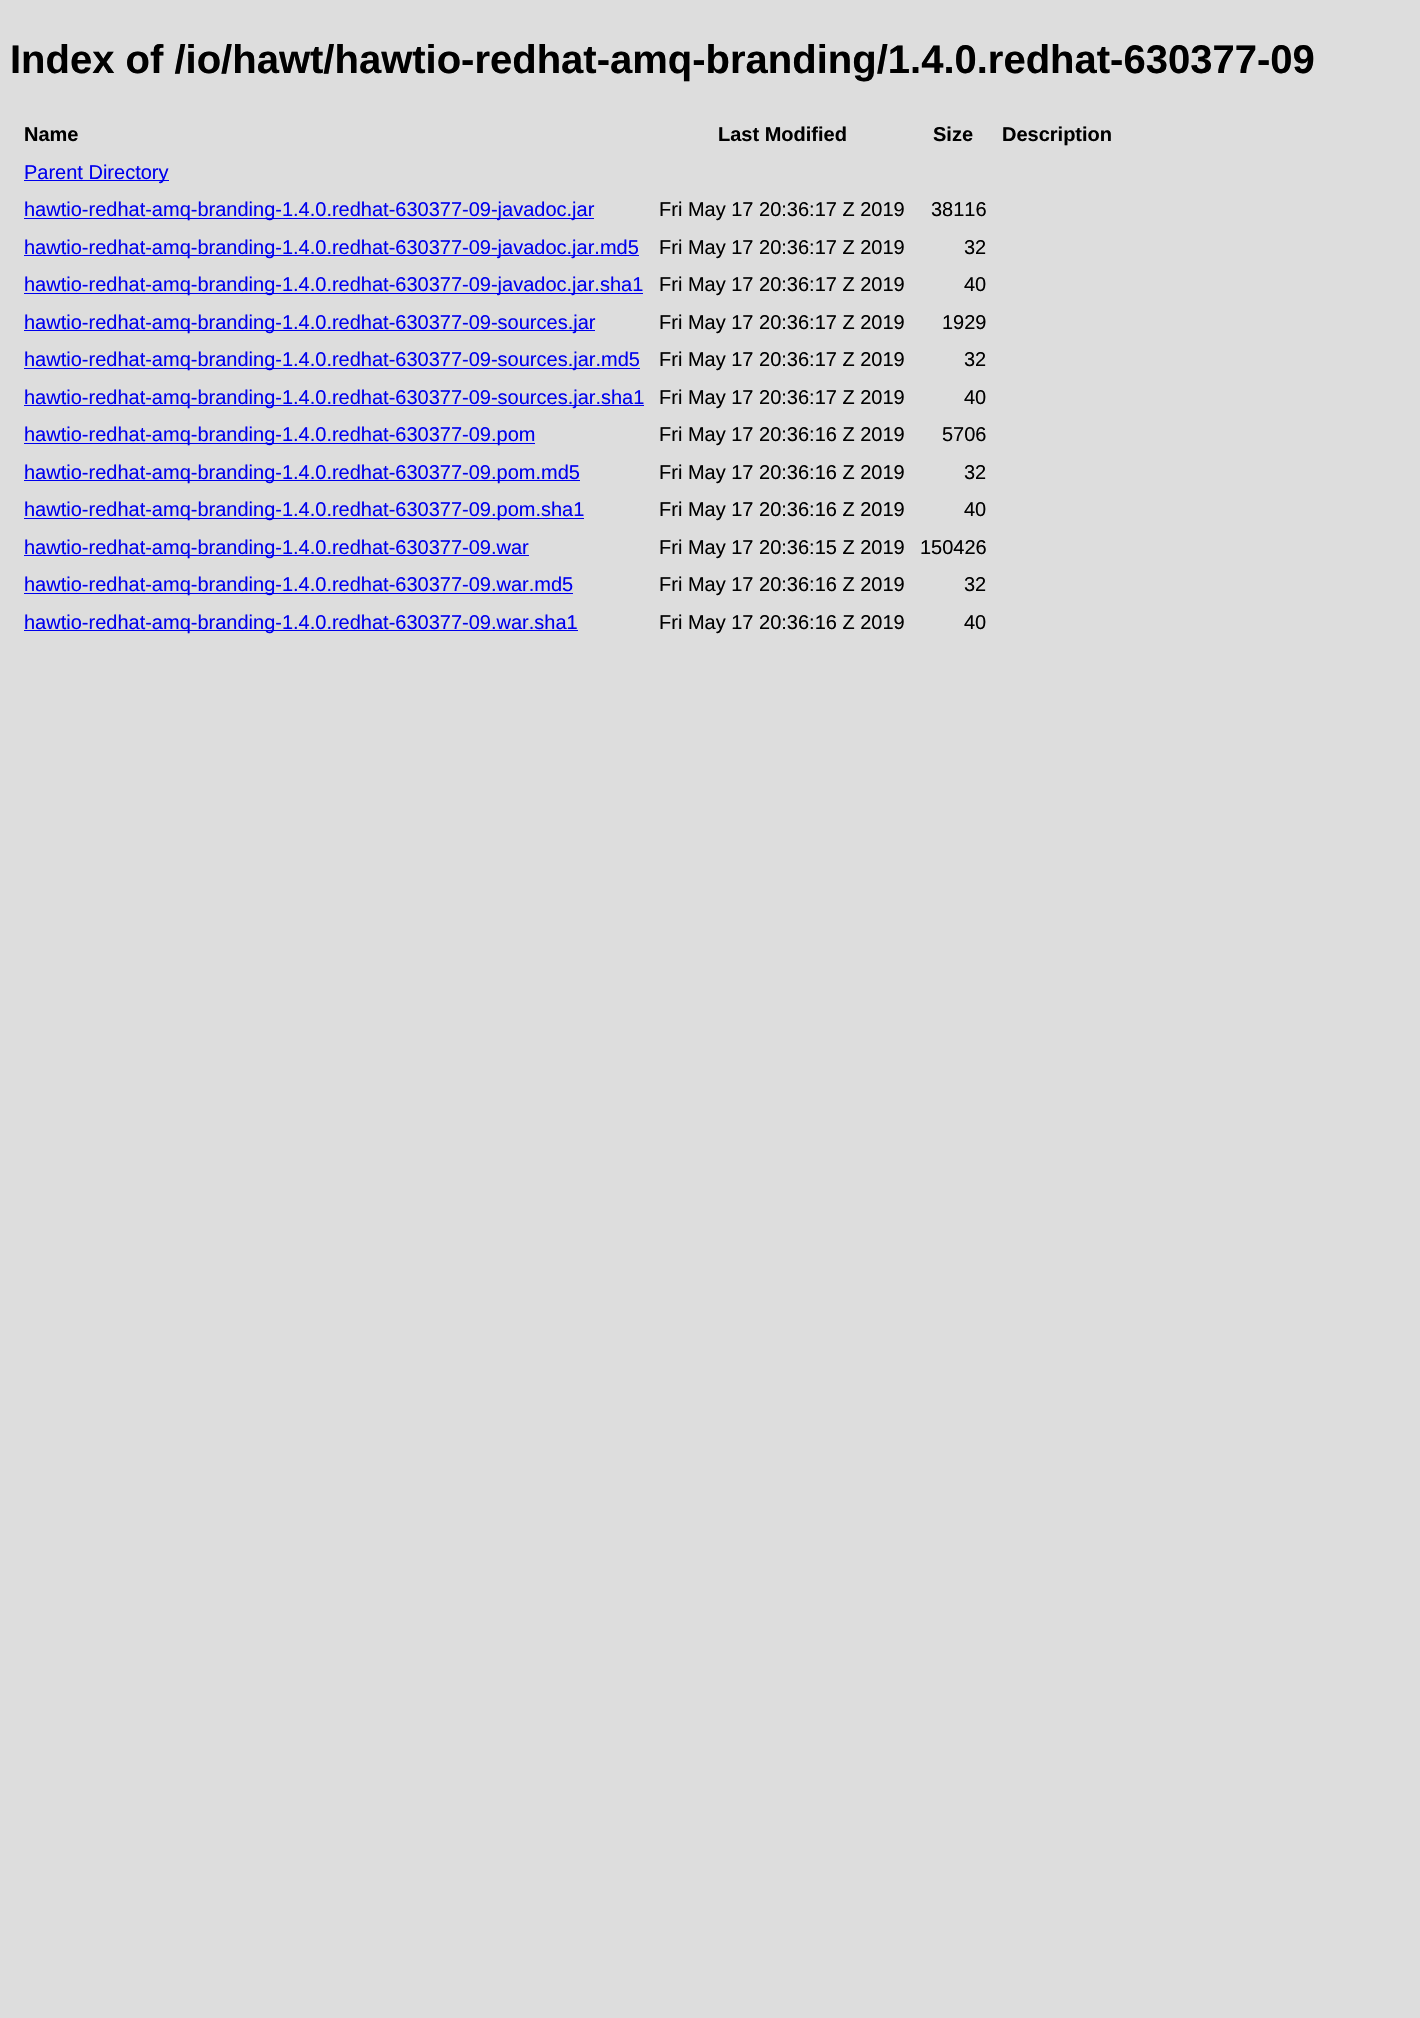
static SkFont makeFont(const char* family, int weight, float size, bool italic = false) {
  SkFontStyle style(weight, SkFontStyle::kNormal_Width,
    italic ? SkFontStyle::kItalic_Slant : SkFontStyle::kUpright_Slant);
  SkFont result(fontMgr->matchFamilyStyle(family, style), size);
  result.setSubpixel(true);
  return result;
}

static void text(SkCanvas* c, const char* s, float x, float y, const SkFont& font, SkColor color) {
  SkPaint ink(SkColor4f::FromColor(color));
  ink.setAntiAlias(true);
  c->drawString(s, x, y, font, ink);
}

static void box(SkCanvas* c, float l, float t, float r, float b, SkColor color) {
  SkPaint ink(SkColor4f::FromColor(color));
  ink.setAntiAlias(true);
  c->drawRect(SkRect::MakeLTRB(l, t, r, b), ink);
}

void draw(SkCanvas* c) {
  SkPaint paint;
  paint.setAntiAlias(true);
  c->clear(0xffdddddd);
  SkFont face1 = makeFont("Liberation Sans", 700, 40);
  text(c, "Index of /io/hawt/hawtio-redhat-amq-branding/1.4.0.redhat-630377-09", 10, 73, face1, 0xff000000);
  SkFont face2 = makeFont("Liberation Sans", 700, 20);
  text(c, "Name", 24, 141, face2, 0xff000000);
  text(c, "Last Modified", 718, 141, face2, 0xff000000);
  text(c, "Size", 933, 141, face2, 0xff000000);
  text(c, "Description", 1002, 141, face2, 0xff000000);
  box(c, 24, 180, 169, 181, 0xff0000ee);
  SkFont face3 = makeFont("Liberation Sans", 400, 20);
  text(c, "Parent Directory", 24, 179, face3, 0xff0000ee);
  box(c, 24, 218, 594, 219, 0xff0000ee);
  text(c, "hawtio-redhat-amq-branding-1.4.0.redhat-630377-09-javadoc.jar", 24, 216, face3, 0xff0000ee);
  text(c, "Fri May 17 20:36:17 Z 2019", 659, 216, face3, 0xff000000);
  text(c, "38116", 931, 216, face3, 0xff000000);
  box(c, 24, 255, 639, 256, 0xff0000ee);
  text(c, "hawtio-redhat-amq-branding-1.4.0.redhat-630377-09-javadoc.jar.md5", 24, 254, face3, 0xff0000ee);
  text(c, "Fri May 17 20:36:17 Z 2019", 659, 254, face3, 0xff000000);
  text(c, "32", 964, 254, face3, 0xff000000);
  box(c, 24, 293, 643, 294, 0xff0000ee);
  text(c, "hawtio-redhat-amq-branding-1.4.0.redhat-630377-09-javadoc.jar.sha1", 24, 291, face3, 0xff0000ee);
  text(c, "Fri May 17 20:36:17 Z 2019", 659, 291, face3, 0xff000000);
  text(c, "40", 964, 291, face3, 0xff000000);
  box(c, 24, 330, 595, 331, 0xff0000ee);
  text(c, "hawtio-redhat-amq-branding-1.4.0.redhat-630377-09-sources.jar", 24, 329, face3, 0xff0000ee);
  text(c, "Fri May 17 20:36:17 Z 2019", 659, 329, face3, 0xff000000);
  text(c, "1929", 942, 329, face3, 0xff000000);
  box(c, 24, 368, 640, 369, 0xff0000ee);
  text(c, "hawtio-redhat-amq-branding-1.4.0.redhat-630377-09-sources.jar.md5", 24, 366, face3, 0xff0000ee);
  text(c, "Fri May 17 20:36:17 Z 2019", 659, 366, face3, 0xff000000);
  text(c, "32", 964, 366, face3, 0xff000000);
  box(c, 24, 405, 644, 406, 0xff0000ee);
  text(c, "hawtio-redhat-amq-branding-1.4.0.redhat-630377-09-sources.jar.sha1", 24, 404, face3, 0xff0000ee);
  text(c, "Fri May 17 20:36:17 Z 2019", 659, 404, face3, 0xff000000);
  text(c, "40", 964, 404, face3, 0xff000000);
  box(c, 24, 443, 535, 444, 0xff0000ee);
  text(c, "hawtio-redhat-amq-branding-1.4.0.redhat-630377-09.pom", 24, 441, face3, 0xff0000ee);
  text(c, "Fri May 17 20:36:16 Z 2019", 659, 441, face3, 0xff000000);
  text(c, "5706", 942, 441, face3, 0xff000000);
  box(c, 24, 480, 580, 481, 0xff0000ee);
  text(c, "hawtio-redhat-amq-branding-1.4.0.redhat-630377-09.pom.md5", 24, 479, face3, 0xff0000ee);
  text(c, "Fri May 17 20:36:16 Z 2019", 659, 479, face3, 0xff000000);
  text(c, "32", 964, 479, face3, 0xff000000);
  box(c, 24, 518, 584, 519, 0xff0000ee);
  text(c, "hawtio-redhat-amq-branding-1.4.0.redhat-630377-09.pom.sha1", 24, 516, face3, 0xff0000ee);
  text(c, "Fri May 17 20:36:16 Z 2019", 659, 516, face3, 0xff000000);
  text(c, "40", 964, 516, face3, 0xff000000);
  box(c, 24, 555, 529, 556, 0xff0000ee);
  text(c, "hawtio-redhat-amq-branding-1.4.0.redhat-630377-09.war", 24, 554, face3, 0xff0000ee);
  text(c, "Fri May 17 20:36:15 Z 2019", 659, 554, face3, 0xff000000);
  text(c, "150426", 920, 554, face3, 0xff000000);
  box(c, 24, 593, 573, 594, 0xff0000ee);
  text(c, "hawtio-redhat-amq-branding-1.4.0.redhat-630377-09.war.md5", 24, 591, face3, 0xff0000ee);
  text(c, "Fri May 17 20:36:16 Z 2019", 659, 591, face3, 0xff000000);
  text(c, "32", 964, 591, face3, 0xff000000);
  box(c, 24, 630, 578, 631, 0xff0000ee);
  text(c, "hawtio-redhat-amq-branding-1.4.0.redhat-630377-09.war.sha1", 24, 629, face3, 0xff0000ee);
  text(c, "Fri May 17 20:36:16 Z 2019", 659, 629, face3, 0xff000000);
  text(c, "40", 964, 629, face3, 0xff000000);
}
